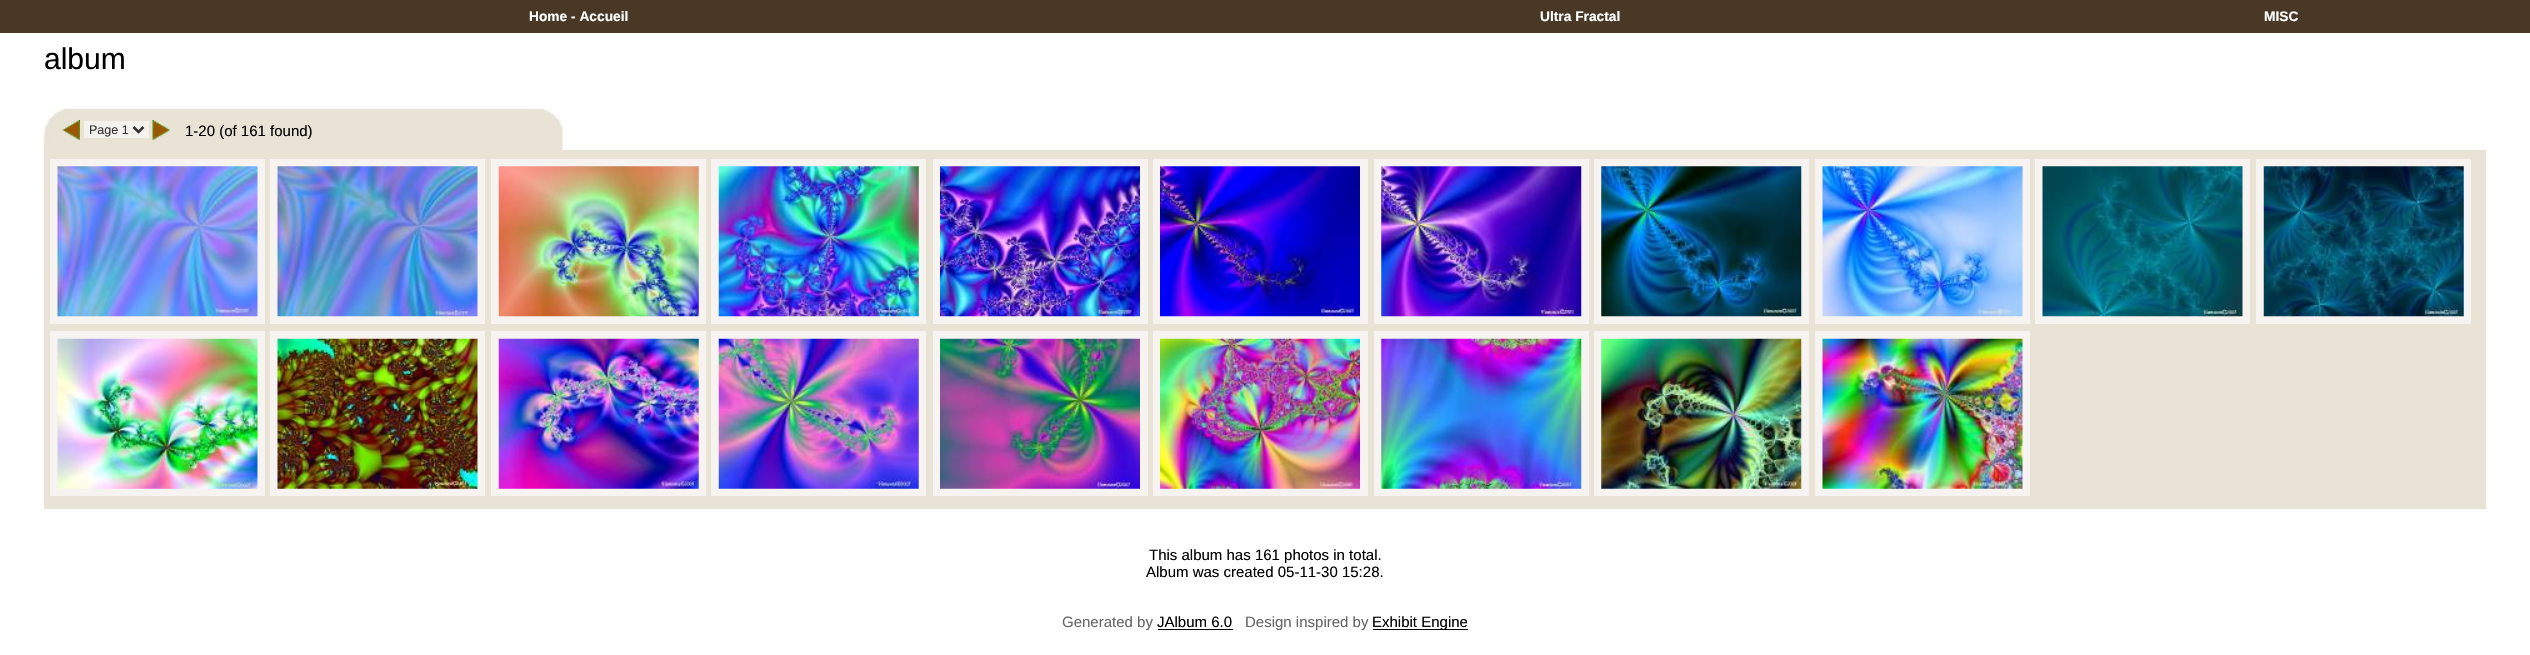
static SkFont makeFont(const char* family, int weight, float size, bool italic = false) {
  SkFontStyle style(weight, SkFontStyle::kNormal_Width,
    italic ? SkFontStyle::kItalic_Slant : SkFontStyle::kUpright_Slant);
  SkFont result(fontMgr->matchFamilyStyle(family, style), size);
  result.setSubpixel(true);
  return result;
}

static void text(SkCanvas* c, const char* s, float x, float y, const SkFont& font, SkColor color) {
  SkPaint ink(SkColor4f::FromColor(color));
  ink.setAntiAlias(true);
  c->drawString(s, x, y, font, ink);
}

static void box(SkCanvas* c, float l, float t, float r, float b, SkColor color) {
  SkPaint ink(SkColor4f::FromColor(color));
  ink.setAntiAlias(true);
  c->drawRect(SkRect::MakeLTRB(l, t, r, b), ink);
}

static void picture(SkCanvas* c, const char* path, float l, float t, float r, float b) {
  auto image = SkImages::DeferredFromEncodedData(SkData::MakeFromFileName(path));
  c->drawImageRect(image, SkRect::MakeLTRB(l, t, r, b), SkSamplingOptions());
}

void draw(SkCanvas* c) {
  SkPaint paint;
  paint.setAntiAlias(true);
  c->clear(0xffffffff);
  box(c, 0, 0, 2530, 33, 0xff4a3826);
  SkFont face1 = makeFont("Liberation Sans", 700, 13.75f);
  text(c, "Home - Accueil", 529, 21, face1, 0xffffffff);
  text(c, "Ultra Fractal", 1540, 21, face1, 0xffffffff);
  text(c, "MISC", 2264, 21, face1, 0xffffffff);
  SkFont face2 = makeFont("Liberation Sans", 400, 30);
  text(c, "album", 44, 69, face2, 0xff000000);
  picture(c, "img_01.png", 43, 108, 563, 150);
  picture(c, "img_02.png", 62, 120, 80, 140);
  box(c, 84, 121, 149, 138, 0xfff3f2ed);
  paint.setStyle(SkPaint::kStroke_Style);
  paint.setStrokeWidth(2.5f);
  paint.setColor(0xff333333);
  c->drawPath(SkPathBuilder().moveTo(133.5f, 127).lineTo(138.5f, 132).lineTo(143.5f, 127).detach(), paint);
  SkFont face3 = makeFont("Liberation Sans", 400, 12.5f);
  text(c, "Page 1", 89, 134, face3, 0xff333333);
  picture(c, "img_03.png", 152, 120, 170, 140);
  SkFont face4 = makeFont("Liberation Sans", 400, 15);
  text(c, "1-20 (of 161 found)", 185, 136, face4, 0xff000000);
  box(c, 44, 150, 2486, 509, 0xffe9e3d5);
  paint.setStrokeWidth(8);
  paint.setColor(0xfff7f3f0);
  c->drawRect(SkRect::MakeLTRB(54, 163, 261, 320), paint);
  c->drawRect(SkRect::MakeLTRB(274, 163, 481, 320), paint);
  c->drawRect(SkRect::MakeLTRB(495, 163, 702, 320), paint);
  c->drawRect(SkRect::MakeLTRB(715, 163, 922, 320), paint);
  c->drawRect(SkRect::MakeLTRB(937, 163, 1144, 320), paint);
  c->drawRect(SkRect::MakeLTRB(1157, 163, 1364, 320), paint);
  c->drawRect(SkRect::MakeLTRB(1378, 163, 1585, 320), paint);
  c->drawRect(SkRect::MakeLTRB(1598, 163, 1805, 320), paint);
  c->drawRect(SkRect::MakeLTRB(1819, 163, 2026, 320), paint);
  c->drawRect(SkRect::MakeLTRB(2039, 163, 2246, 320), paint);
  c->drawRect(SkRect::MakeLTRB(2260, 163, 2467, 320), paint);
  picture(c, "img_04.png", 57, 166, 258, 317);
  picture(c, "img_05.png", 277, 166, 478, 317);
  picture(c, "img_06.png", 498, 166, 699, 317);
  picture(c, "img_07.png", 718, 166, 919, 317);
  picture(c, "img_08.png", 940, 166, 1140, 317);
  picture(c, "img_09.png", 1160, 166, 1360, 317);
  picture(c, "img_10.png", 1381, 166, 1582, 317);
  picture(c, "img_11.png", 1601, 166, 1802, 317);
  picture(c, "img_12.png", 1822, 166, 2023, 317);
  picture(c, "img_13.png", 2042, 166, 2243, 317);
  picture(c, "img_14.png", 2263, 166, 2464, 317);
  c->drawRect(SkRect::MakeLTRB(54, 335, 261, 492), paint);
  c->drawRect(SkRect::MakeLTRB(274, 335, 481, 492), paint);
  c->drawRect(SkRect::MakeLTRB(495, 335, 702, 492), paint);
  c->drawRect(SkRect::MakeLTRB(715, 335, 922, 492), paint);
  c->drawRect(SkRect::MakeLTRB(937, 335, 1144, 492), paint);
  c->drawRect(SkRect::MakeLTRB(1157, 335, 1364, 492), paint);
  c->drawRect(SkRect::MakeLTRB(1378, 335, 1585, 492), paint);
  c->drawRect(SkRect::MakeLTRB(1598, 335, 1805, 492), paint);
  c->drawRect(SkRect::MakeLTRB(1819, 335, 2026, 492), paint);
  picture(c, "img_15.png", 57, 338, 258, 489);
  picture(c, "img_16.png", 277, 338, 478, 489);
  picture(c, "img_17.png", 498, 338, 699, 489);
  picture(c, "img_18.png", 718, 338, 919, 489);
  picture(c, "img_19.png", 940, 338, 1140, 489);
  picture(c, "img_20.png", 1160, 338, 1360, 489);
  picture(c, "img_21.png", 1381, 338, 1582, 489);
  picture(c, "img_22.png", 1601, 338, 1802, 489);
  picture(c, "img_23.png", 1822, 338, 2023, 489);
  text(c, "This album has 161 photos in total.", 1149, 560, face4, 0xff000000);
  text(c, "Album was created 05-11-30 15:28.", 1146, 577, face4, 0xff000000);
  text(c, "Generated by", 1062, 627, face4, 0xff666666);
  text(c, "JAlbum 6.0", 1157, 627, face4, 0xff000000);
  box(c, 1158, 629, 1233, 630, 0xff000000);
  text(c, "Design inspired by", 1245, 627, face4, 0xff666666);
  box(c, 1373, 629, 1468, 630, 0xff000000);
  text(c, "Exhibit Engine", 1372, 627, face4, 0xff000000);
}
